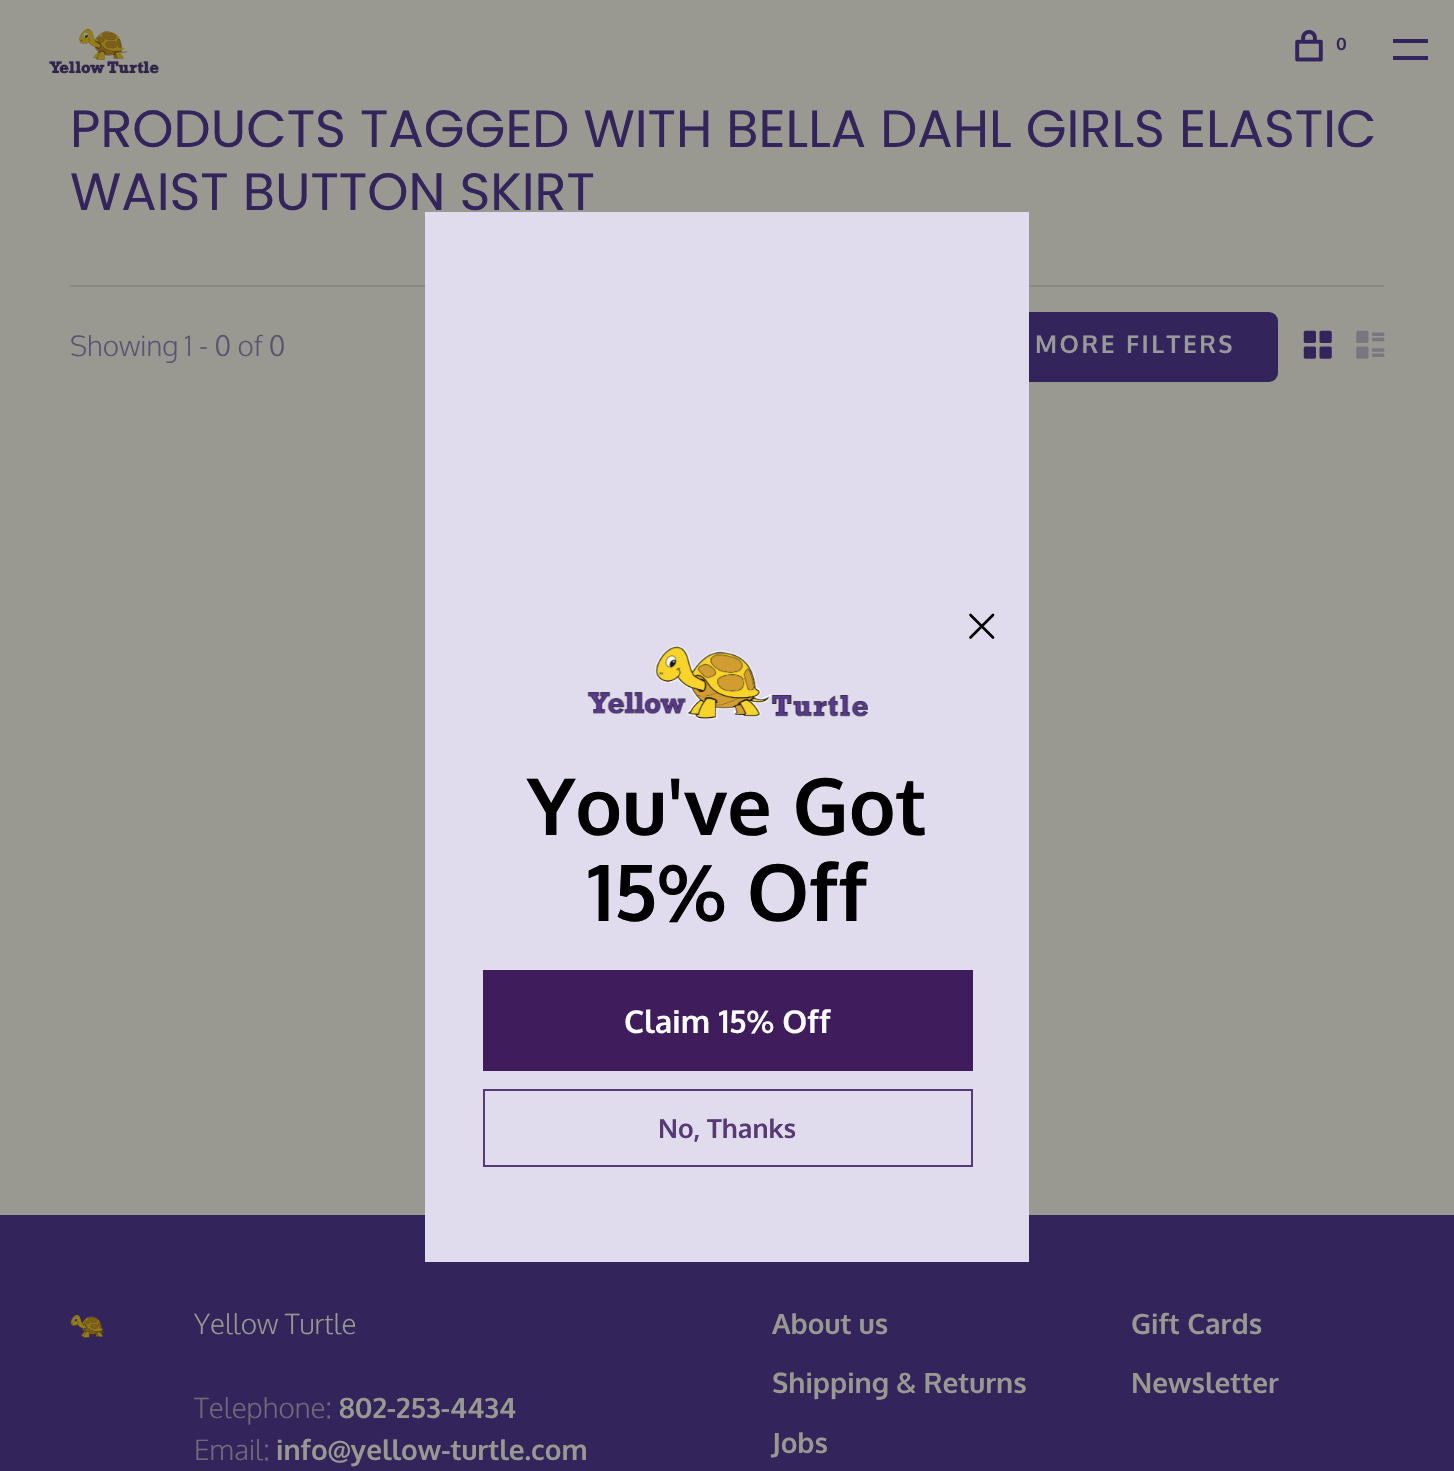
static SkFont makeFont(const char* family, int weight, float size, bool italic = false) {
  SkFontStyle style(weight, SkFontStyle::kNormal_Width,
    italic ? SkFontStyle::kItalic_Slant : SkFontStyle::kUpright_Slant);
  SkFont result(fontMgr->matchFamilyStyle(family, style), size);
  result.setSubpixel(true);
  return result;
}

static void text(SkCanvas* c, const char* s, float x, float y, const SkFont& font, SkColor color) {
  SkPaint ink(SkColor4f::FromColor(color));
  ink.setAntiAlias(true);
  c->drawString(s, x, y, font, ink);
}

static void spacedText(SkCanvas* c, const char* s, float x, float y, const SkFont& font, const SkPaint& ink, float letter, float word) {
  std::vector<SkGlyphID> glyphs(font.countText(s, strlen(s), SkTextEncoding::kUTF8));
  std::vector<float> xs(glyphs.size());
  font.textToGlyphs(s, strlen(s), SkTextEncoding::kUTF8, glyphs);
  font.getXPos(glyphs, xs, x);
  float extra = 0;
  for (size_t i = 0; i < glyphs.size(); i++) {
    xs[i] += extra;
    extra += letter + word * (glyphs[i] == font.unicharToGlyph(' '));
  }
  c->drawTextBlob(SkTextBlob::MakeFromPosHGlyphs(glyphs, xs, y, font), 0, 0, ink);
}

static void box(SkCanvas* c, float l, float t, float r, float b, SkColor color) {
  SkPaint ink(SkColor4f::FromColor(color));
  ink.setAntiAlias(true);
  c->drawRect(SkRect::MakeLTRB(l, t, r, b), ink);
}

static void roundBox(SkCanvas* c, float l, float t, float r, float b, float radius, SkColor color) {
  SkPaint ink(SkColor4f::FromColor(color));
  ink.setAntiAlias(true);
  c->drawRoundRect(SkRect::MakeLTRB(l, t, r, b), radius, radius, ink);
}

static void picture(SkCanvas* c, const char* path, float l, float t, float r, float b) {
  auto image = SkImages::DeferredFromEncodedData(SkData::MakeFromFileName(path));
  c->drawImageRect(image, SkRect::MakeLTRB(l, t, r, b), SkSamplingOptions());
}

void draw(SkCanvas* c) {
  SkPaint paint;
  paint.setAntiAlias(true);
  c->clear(0xff999891);
  picture(c, "img_01.png", 49, 29, 159, 74);
  picture(c, "img_02.png", 1295, 30, 1323, 62);
  SkFont face1 = makeFont("Oxygen", 700, 17);
  paint.setColor(0xff33255b);
  spacedText(c, "0", 1336, 50, face1, paint, 2.5f, 0);
  box(c, 1393, 39, 1428, 43, 0xff33255b);
  box(c, 1393, 56, 1428, 60, 0xff33255b);
  SkFont face2 = makeFont("Poppins", 400, 52.5f);
  text(c, "PRODUCTS TAGGED WITH BELLA DAHL GIRLS ELASTIC", 70, 147, face2, 0xff33255b);
  text(c, "WAIST BUTTON SKIRT", 70, 210, face2, 0xff33255b);
  box(c, 70, 285, 1384, 287, 0xff8a8982);
  SkFont face3 = makeFont("Oxygen", 300, 28);
  text(c, "Showing 1 - 0 of 0", 70, 356, face3, 0xff5c5371);
  roundBox(c, 947, 312, 1278, 382, 9, 0xff33255b);
  SkFont face4 = makeFont("Oxygen", 700, 24.5f);
  paint.setColor(0xff999999);
  spacedText(c, "MORE FILTERS", 1035, 353, face4, paint, 2.5f, 0);
  picture(c, "img_03.png", 1303, 330, 1332, 359);
  picture(c, "img_04.png", 1356, 330, 1385, 359);
  box(c, 0, 1215, 1454, 1471, 0xff33255b);
  picture(c, "img_05.png", 70, 1314, 106, 1338);
  text(c, "Yellow Turtle", 194, 1334, face3, 0xff999891);
  text(c, "Telephone:", 194, 1418, face3, 0xff706a7b);
  SkFont face5 = makeFont("Oxygen", 700, 28);
  text(c, "802-253-4434", 339, 1418, face5, 0xff999891);
  text(c, "Email:", 194, 1460, face3, 0xff706a7b);
  text(c, "info@yellow-turtle.com", 276, 1460, face5, 0xff999891);
  text(c, "About us", 772, 1334, face5, 0xff999891);
  text(c, "Shipping & Returns", 772, 1393, face5, 0xff999891);
  text(c, "Jobs", 772, 1453, face5, 0xff999891);
  text(c, "Gift Cards", 1131, 1334, face5, 0xff999891);
  text(c, "Newsletter", 1131, 1393, face5, 0xff999891);
  box(c, 425, 212, 1029, 1262, 0xffe0dced);
  paint.setStyle(SkPaint::kStroke_Style);
  paint.setStrokeWidth(2.6f);
  paint.setStrokeCap(SkPaint::kRound_Cap);
  paint.setColor(0xff000000);
  c->drawPath(SkPathBuilder().moveTo(970.5f, 615).lineTo(993, 637.5f).moveTo(993, 615).lineTo(970.5f, 637.5f).detach(), paint);
  picture(c, "img_06.png", 587, 645, 868, 720);
  SkFont face6 = makeFont("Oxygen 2", 700, 78.75f);
  text(c, "You've Got", 527, 835, face6, 0xff000000);
  text(c, "15% Off", 587, 921, face6, 0xff000000);
  box(c, 483, 970, 973, 1071, 0xff3f1d5d);
  SkFont face7 = makeFont("Oxygen 2", 700, 31.5f);
  text(c, "Claim 15% Off", 624, 1033, face7, 0xffffffff);
  paint.setStrokeWidth(2);
  paint.setStrokeCap(SkPaint::kButt_Cap);
  paint.setColor(0xff573a73);
  c->drawRect(SkRect::MakeLTRB(484, 1090, 972, 1166), paint);
  SkFont face8 = makeFont("Oxygen 2", 700, 26.25f);
  text(c, "No, Thanks", 658, 1138, face8, 0xff573a73);
}
